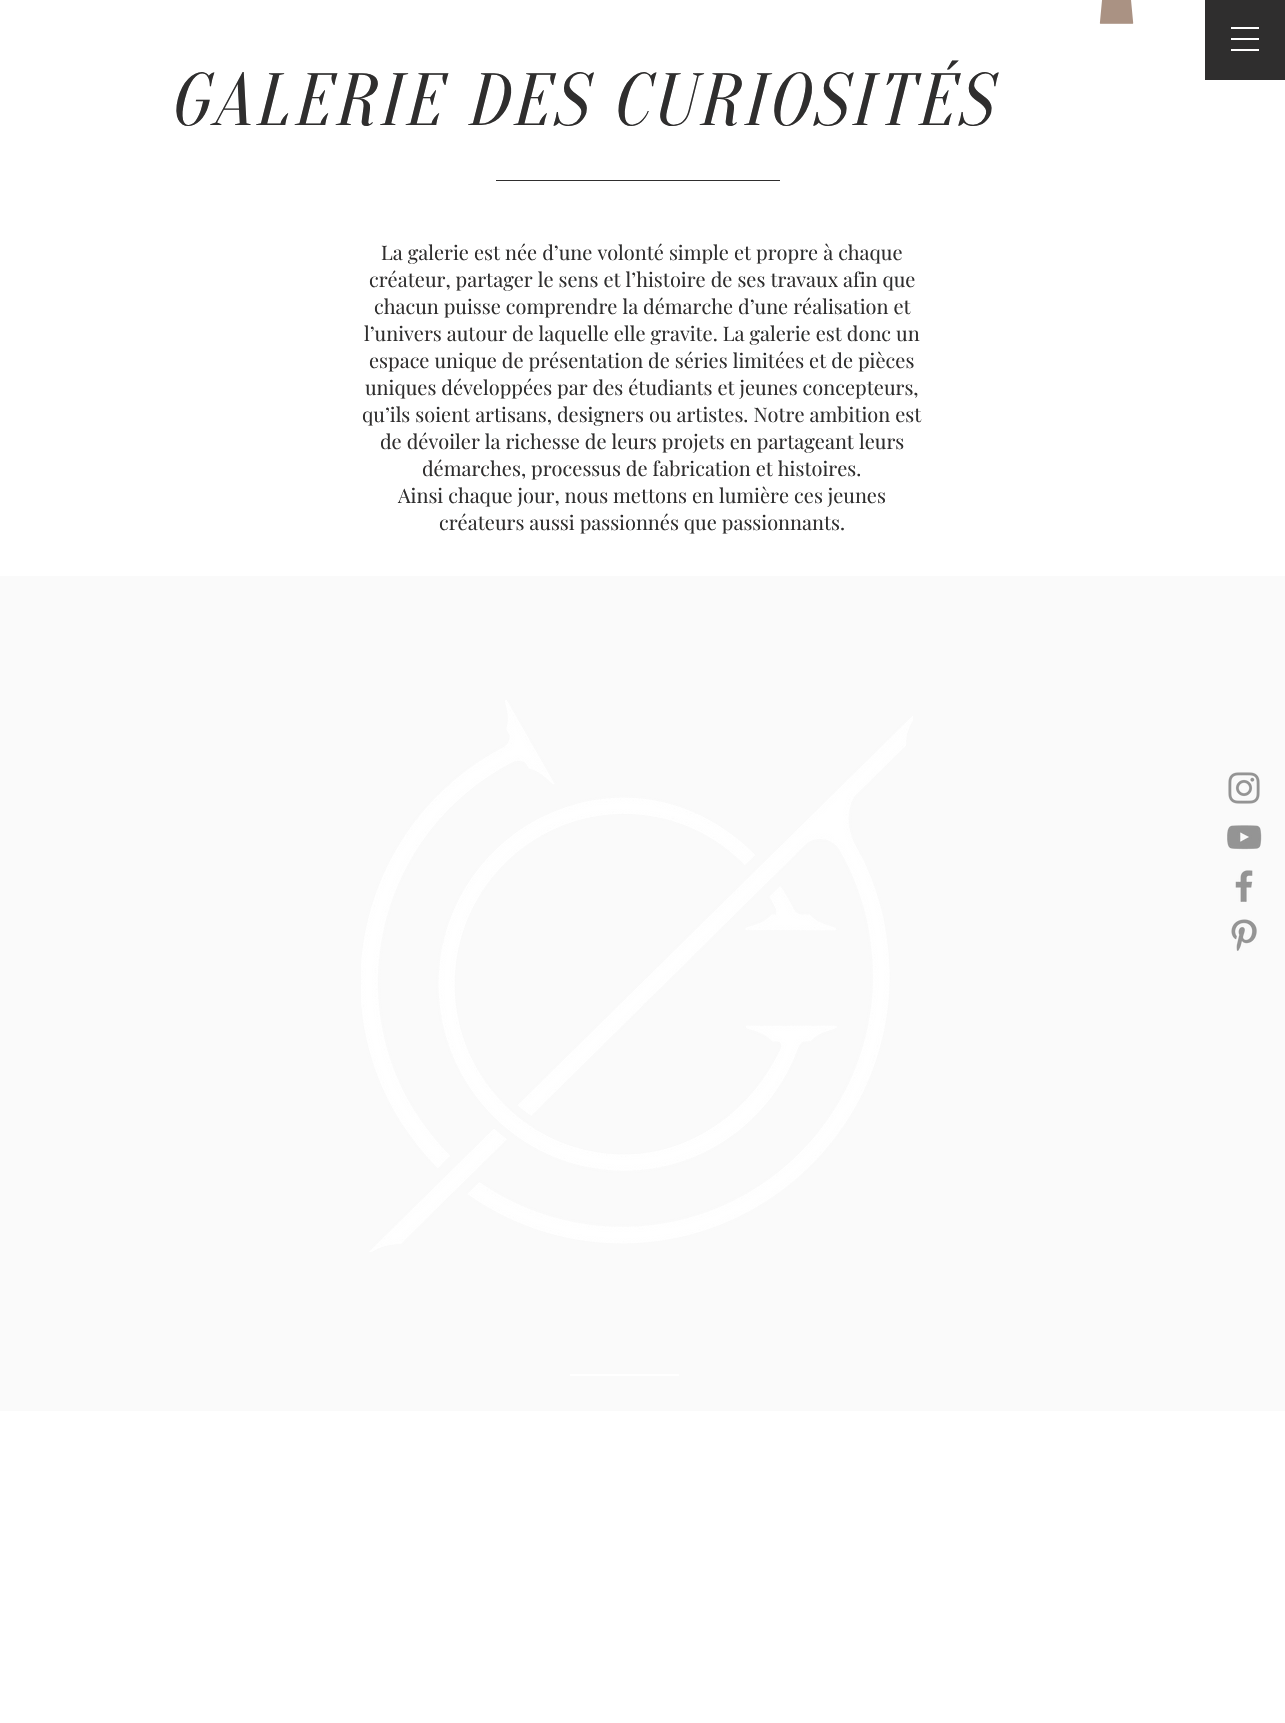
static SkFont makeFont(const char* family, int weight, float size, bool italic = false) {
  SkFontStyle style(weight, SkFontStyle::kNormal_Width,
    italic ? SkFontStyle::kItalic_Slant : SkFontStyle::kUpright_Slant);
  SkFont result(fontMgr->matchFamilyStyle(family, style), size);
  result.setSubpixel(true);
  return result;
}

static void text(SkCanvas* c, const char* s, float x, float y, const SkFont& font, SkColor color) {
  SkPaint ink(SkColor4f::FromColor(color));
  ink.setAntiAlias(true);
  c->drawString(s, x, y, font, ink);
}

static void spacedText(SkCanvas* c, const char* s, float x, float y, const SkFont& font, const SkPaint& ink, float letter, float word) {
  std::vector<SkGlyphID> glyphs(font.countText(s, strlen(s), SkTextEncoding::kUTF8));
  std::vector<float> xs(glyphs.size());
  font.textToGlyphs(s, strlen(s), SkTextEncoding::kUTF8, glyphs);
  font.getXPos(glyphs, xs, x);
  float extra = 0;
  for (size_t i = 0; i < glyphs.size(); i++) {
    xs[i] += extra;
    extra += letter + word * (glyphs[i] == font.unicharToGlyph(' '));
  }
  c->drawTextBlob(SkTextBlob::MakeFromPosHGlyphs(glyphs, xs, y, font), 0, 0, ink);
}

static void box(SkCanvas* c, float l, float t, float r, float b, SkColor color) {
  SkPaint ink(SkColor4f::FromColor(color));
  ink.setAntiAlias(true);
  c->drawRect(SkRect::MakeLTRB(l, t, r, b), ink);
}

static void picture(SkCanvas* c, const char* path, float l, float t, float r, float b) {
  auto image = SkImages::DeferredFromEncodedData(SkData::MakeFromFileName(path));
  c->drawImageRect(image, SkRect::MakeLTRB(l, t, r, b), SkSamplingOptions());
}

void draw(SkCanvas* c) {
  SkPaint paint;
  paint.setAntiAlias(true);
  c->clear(0xffffffff);
  picture(c, "img_01.png", 1099, 0, 1134, 24);
  box(c, 1205, 0, 1285, 80, 0xff2f2e2e);
  box(c, 1231, 27, 1259, 29, 0xffffffff);
  box(c, 1231, 38, 1259, 40, 0xffffffff);
  box(c, 1231, 49, 1259, 51, 0xffffffff);
  SkFont face1 = makeFont("Oranienbaum", 400, 74, true);
  paint.setColor(0xff2f2e2e);
  spacedText(c, "GALERIE DES CURIOSITÉS", 168, 125, face1, paint, 3.7f, 0);
  box(c, 496, 180, 780, 181, 0xff2f2e2e);
  SkFont face2 = makeFont("Playfair Display", 400, 20);
  text(c, "La galerie est née d’une volonté simple et propre à chaque", 381, 260, face2, 0xff2f2e2e);
  text(c, "créateur, partager le sens et l’histoire de ses travaux afin que", 369, 287, face2, 0xff2f2e2e);
  text(c, "chacun puisse comprendre la démarche d’une réalisation et", 374, 314, face2, 0xff2f2e2e);
  text(c, "l’univers autour de laquelle elle gravite. La galerie est donc un", 364, 341, face2, 0xff2f2e2e);
  text(c, "espace unique de présentation de séries limitées et de pièces", 369, 368, face2, 0xff2f2e2e);
  text(c, "uniques développées par des étudiants et jeunes concepteurs,", 365, 395, face2, 0xff2f2e2e);
  text(c, "qu’ils soient artisans, designers ou artistes. Notre ambition est", 362, 422, face2, 0xff2f2e2e);
  text(c, "de dévoiler la richesse de leurs projets en partageant leurs", 380, 449, face2, 0xff2f2e2e);
  text(c, "démarches, processus de fabrication et histoires.", 422, 476, face2, 0xff2f2e2e);
  text(c, "Ainsi chaque jour, nous mettons en lumière ces jeunes", 398, 503, face2, 0xff2f2e2e);
  text(c, "créateurs aussi passionnés que passionnants.", 439, 530, face2, 0xff2f2e2e);
  box(c, 0, 576, 1285, 1411, 0xfffafafa);
  picture(c, "img_02.png", 361, 700, 913, 1252);
  box(c, 570, 1374, 679, 1376, 0xffffffff);
  picture(c, "img_03.png", 1228, 772, 1260, 804);
  picture(c, "img_04.png", 1227, 825, 1262, 850);
  picture(c, "img_05.png", 1235, 870, 1253, 902);
  picture(c, "img_06.png", 1231, 919, 1257, 951);
}
